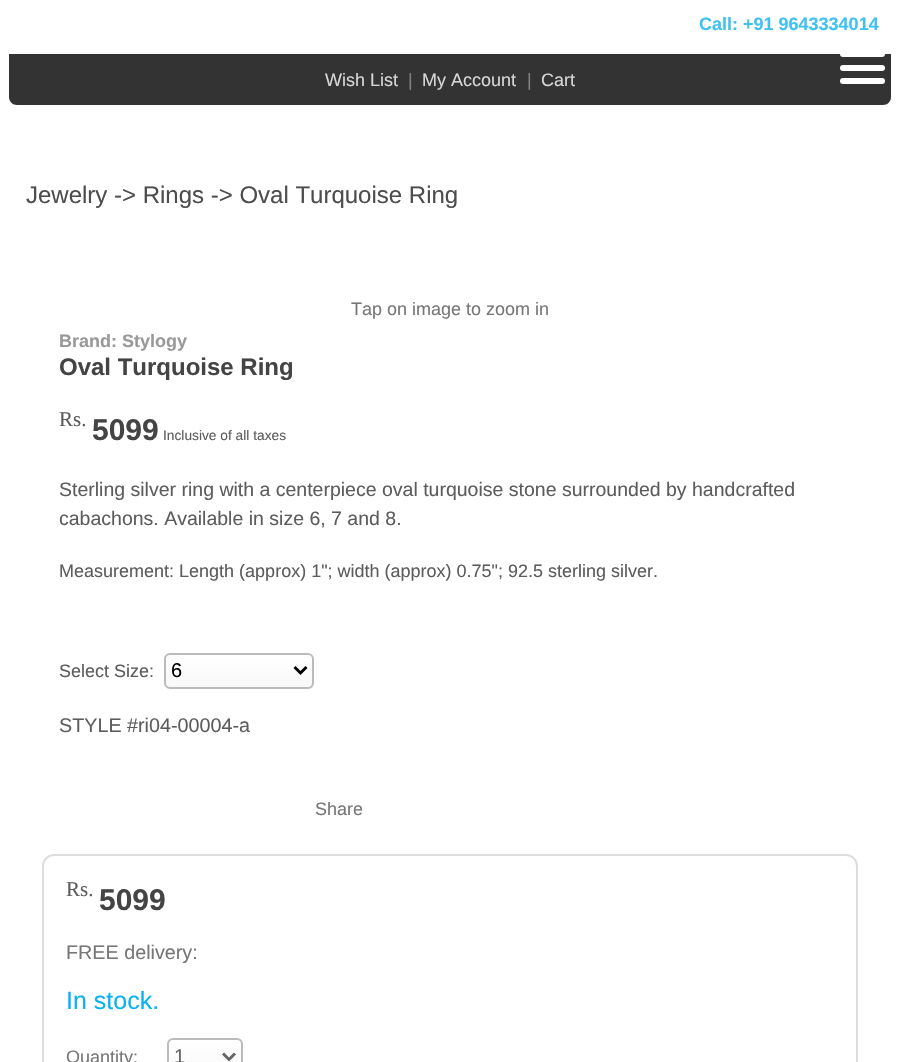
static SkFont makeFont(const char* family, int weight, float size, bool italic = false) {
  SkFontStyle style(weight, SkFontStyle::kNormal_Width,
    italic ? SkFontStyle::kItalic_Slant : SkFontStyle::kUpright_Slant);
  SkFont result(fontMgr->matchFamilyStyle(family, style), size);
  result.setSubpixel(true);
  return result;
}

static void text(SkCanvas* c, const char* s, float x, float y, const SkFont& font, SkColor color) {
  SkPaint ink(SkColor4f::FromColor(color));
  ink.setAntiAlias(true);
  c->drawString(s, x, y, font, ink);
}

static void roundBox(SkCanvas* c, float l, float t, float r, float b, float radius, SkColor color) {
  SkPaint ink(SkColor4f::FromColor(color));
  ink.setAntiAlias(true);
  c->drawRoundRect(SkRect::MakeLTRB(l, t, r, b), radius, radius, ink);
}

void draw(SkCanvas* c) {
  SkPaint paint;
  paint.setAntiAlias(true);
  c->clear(0xffffffff);
  SkFont face1 = makeFont("Liberation Sans", 700, 18);
  text(c, "Call: +91 9643334014", 699, 30, face1, 0xff40c1f1);
  paint.setColor(0xff333333);
  c->drawPath(SkPathBuilder().moveTo(9, 54).lineTo(891, 54).lineTo(891, 97).cubicTo(891, 101.5f, 887.5f, 105, 883, 105).lineTo(17, 105).cubicTo(12.5f, 105, 9, 101.5f, 9, 97).close().detach(), paint);
  SkFont face2 = makeFont("Liberation Sans", 400, 18);
  text(c, "Wish List", 325, 86, face2, 0xffd7d7d7);
  text(c, "|", 408, 86, face2, 0xff818181);
  text(c, "My Account", 422, 86, face2, 0xffd7d7d7);
  text(c, "|", 527, 86, face2, 0xff818181);
  text(c, "Cart", 541, 86, face2, 0xffd7d7d7);
  roundBox(c, 840, 51, 885, 57, 3, 0xffffffff);
  roundBox(c, 840, 65, 885, 71, 3, 0xffffffff);
  roundBox(c, 840, 78, 885, 84, 3, 0xffffffff);
  SkFont face3 = makeFont("Liberation Sans", 400, 24);
  text(c, "Jewelry -> Rings -> Oval Turquoise Ring", 26, 203, face3, 0xff4d4d4d);
  text(c, "Tap on image to zoom in", 351, 315, face2, 0xff777777);
  text(c, "Brand: Stylogy", 59, 347, face1, 0xff999999);
  SkFont face4 = makeFont("Liberation Sans", 700, 24);
  text(c, "Oval Turquoise Ring", 59, 375, face4, 0xff444444);
  SkFont face5 = makeFont("Liberation Serif", 400, 21);
  text(c, "Rs.", 59, 426, face5, 0xff5c5c5c);
  SkFont face6 = makeFont("Liberation Sans", 700, 30);
  text(c, "5099", 92, 440, face6, 0xff444444);
  SkFont face7 = makeFont("Liberation Sans", 400, 13.75f);
  text(c, "Inclusive of all taxes", 163, 440, face7, 0xff5c5c5c);
  SkFont face8 = makeFont("Liberation Sans", 400, 19.5f);
  text(c, "Sterling silver ring with a centerpiece oval turquoise stone surrounded by handcrafted", 59, 496, face8, 0xff5c5c5c);
  text(c, "cabachons. Available in size 6, 7 and 8.", 59, 525, face8, 0xff5c5c5c);
  text(c, "Measurement: Length (approx) 1\"; width (approx) 0.75\"; 92.5 sterling silver.", 59, 577, face2, 0xff5c5c5c);
  text(c, "Select Size:", 59, 677, face2, 0xff5c5c5c);
  c->save();
  c->clipPath(SkPathBuilder().moveTo(170, 653).lineTo(308, 653).cubicTo(311.5f, 653, 314, 655.5f, 314, 659).lineTo(314, 683).cubicTo(314, 686.5f, 311.5f, 689, 308, 689).lineTo(170, 689).cubicTo(166.5f, 689, 164, 686.5f, 164, 683).lineTo(164, 659).cubicTo(164, 655.5f, 166.5f, 653, 170, 653).close().detach(), true);
  {
    const SkColor colors[] = {0xffffffff, 0xfff8f8f8};
    const float stops[] = {0, 1};
    const SkPoint ends[] = {{239, 654}, {239, 687}};
    paint.setShader(SkGradientShader::MakeLinear(ends, colors, stops, 2, SkTileMode::kClamp));
    paint.setAlpha(255);
  }
  c->drawRect(SkRect::MakeLTRB(164, 654, 314, 687), paint);
  c->restore();
  paint.setStyle(SkPaint::kStroke_Style);
  paint.setStrokeWidth(2);
  paint.setShader(nullptr);
  paint.setColor(0xffbbbbbb);
  c->drawRoundRect(SkRect::MakeLTRB(165, 654, 313, 688), 5, 5, paint);
  paint.setStrokeWidth(3);
  paint.setColor(0xff000000);
  c->drawPath(SkPathBuilder().moveTo(294.5f, 667).lineTo(300.5f, 673).lineTo(306.5f, 667).detach(), paint);
  SkFont face9 = makeFont("Liberation Sans", 400, 20);
  text(c, "6", 171, 677, face9, 0xff000000);
  SkFont face10 = makeFont("Liberation Sans", 400, 19.75f);
  text(c, "STYLE #ri04-00004-a", 59, 732, face10, 0xff5c5c5c);
  text(c, "Share", 315, 815, face2, 0xff777777);
  paint.setStrokeWidth(2);
  paint.setColor(0xffdddddd);
  c->drawRoundRect(SkRect::MakeLTRB(43, 855, 857, 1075), 11, 11, paint);
  text(c, "Rs.", 66, 896, face5, 0xff5c5c5c);
  text(c, "5099", 99, 910, face6, 0xff444444);
  text(c, "FREE delivery:", 66, 959, face10, 0xff777777);
  SkFont face11 = makeFont("Liberation Sans", 400, 25);
  text(c, "In stock.", 66, 1009, face11, 0xff07b2f2);
  text(c, "Quantity:", 66, 1063, face2, 0xff777777);
  c->save();
  c->clipPath(SkPathBuilder().moveTo(173, 1038).lineTo(237, 1038).cubicTo(240.5f, 1038, 243, 1040.5f, 243, 1044).lineTo(243, 1068).cubicTo(243, 1071.5f, 240.5f, 1074, 237, 1074).lineTo(173, 1074).cubicTo(169.5f, 1074, 167, 1071.5f, 167, 1068).lineTo(167, 1044).cubicTo(167, 1040.5f, 169.5f, 1038, 173, 1038).close().detach(), true);
  paint.setStyle(SkPaint::kFill_Style);
  {
    const SkColor colors[] = {0xffffffff, 0xfff8f8f8};
    const float stops[] = {0, 1};
    const SkPoint ends[] = {{205, 1040}, {205, 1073}};
    paint.setShader(SkGradientShader::MakeLinear(ends, colors, stops, 2, SkTileMode::kClamp));
    paint.setAlpha(255);
  }
  c->drawRect(SkRect::MakeLTRB(167, 1040, 243, 1062), paint);
  c->restore();
  paint.setStyle(SkPaint::kStroke_Style);
  paint.setShader(nullptr);
  paint.setColor(0xffbbbbbb);
  c->drawRoundRect(SkRect::MakeLTRB(168, 1039, 242, 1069), 5, 5, paint);
  paint.setStrokeWidth(3);
  paint.setColor(0xff666666);
  c->drawPath(SkPathBuilder().moveTo(223, 1053.5f).lineTo(229, 1059.5f).lineTo(235, 1053.5f).detach(), paint);
  text(c, "1", 174, 1063, face9, 0xff666666);
}
